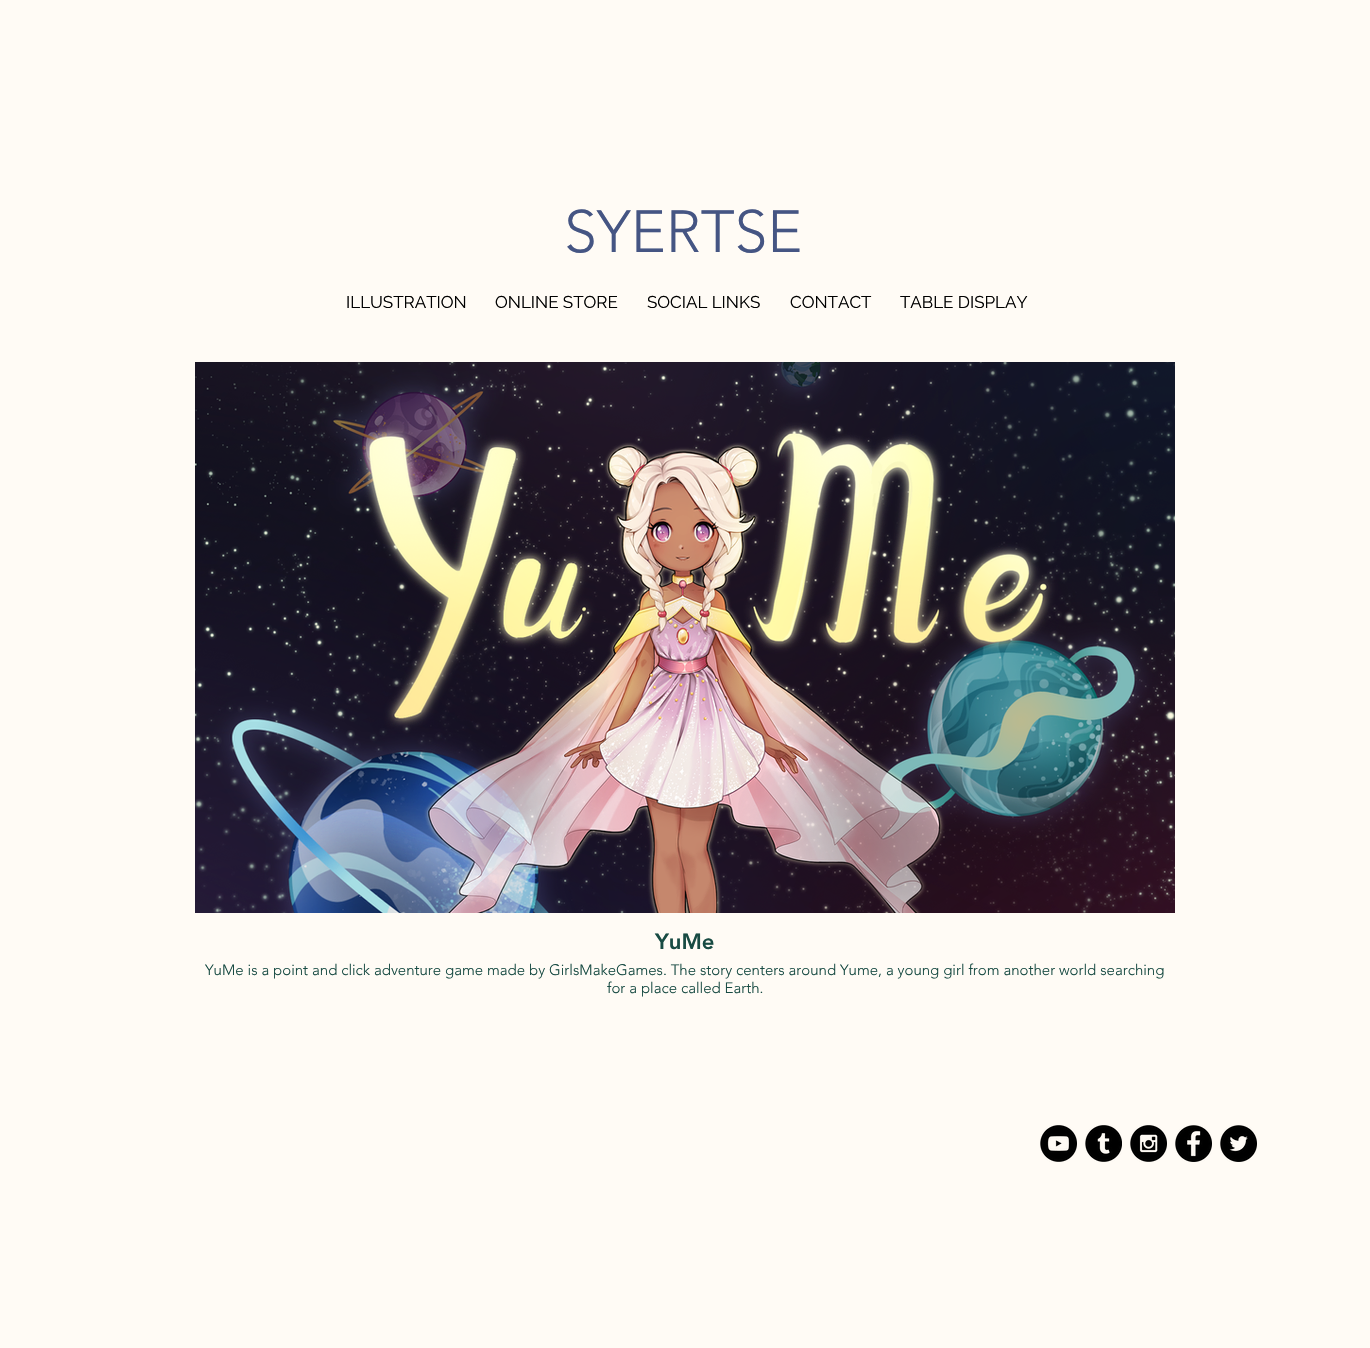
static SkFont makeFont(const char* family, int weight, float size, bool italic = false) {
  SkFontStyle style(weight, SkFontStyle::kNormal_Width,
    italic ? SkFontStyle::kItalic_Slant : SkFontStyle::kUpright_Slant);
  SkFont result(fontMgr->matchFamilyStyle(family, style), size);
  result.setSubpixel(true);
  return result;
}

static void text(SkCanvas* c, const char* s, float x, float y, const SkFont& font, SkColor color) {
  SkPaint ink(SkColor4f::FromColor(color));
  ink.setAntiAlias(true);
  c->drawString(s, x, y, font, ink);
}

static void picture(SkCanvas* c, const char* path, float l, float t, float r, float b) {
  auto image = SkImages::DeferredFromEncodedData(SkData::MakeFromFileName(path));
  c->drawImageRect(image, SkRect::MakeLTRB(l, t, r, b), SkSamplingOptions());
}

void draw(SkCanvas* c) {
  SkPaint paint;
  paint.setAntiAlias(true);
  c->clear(0xfffffbf5);
  SkFont face1 = makeFont("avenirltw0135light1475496", 300, 59);
  text(c, "SYERTSE", 564, 252, face1, 0xff455583);
  SkFont face2 = makeFont("Raleway", 400, 17);
  text(c, "ILLUSTRATION", 346, 308, face2, 0xff000000);
  text(c, "ONLINE STORE", 495, 308, face2, 0xff000000);
  text(c, "SOCIAL LINKS", 647, 308, face2, 0xff000000);
  text(c, "CONTACT", 790, 308, face2, 0xff000000);
  text(c, "TABLE DISPLAY", 900, 308, face2, 0xff000000);
  picture(c, "img_01.png", 195, 362, 1175, 913);
  SkFont face3 = makeFont("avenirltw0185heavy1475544", 900, 22);
  text(c, "YuMe", 655, 949, face3, 0xff184b43);
  SkFont face4 = makeFont("avenirltw0135light1475496", 300, 15);
  text(c, "YuMe is a point and click adventure game made by GirlsMakeGames. The story centers around Yume, a young girl from another world searching", 205, 975, face4, 0xff184b43);
  text(c, "for a place called Earth.", 607, 993, face4, 0xff184b43);
  picture(c, "img_02.png", 1040, 1125, 1077, 1162);
  picture(c, "img_03.png", 1085, 1125, 1122, 1162);
  picture(c, "img_04.png", 1130, 1125, 1167, 1162);
  picture(c, "img_05.png", 1175, 1125, 1212, 1162);
  picture(c, "img_06.png", 1220, 1125, 1257, 1162);
}
